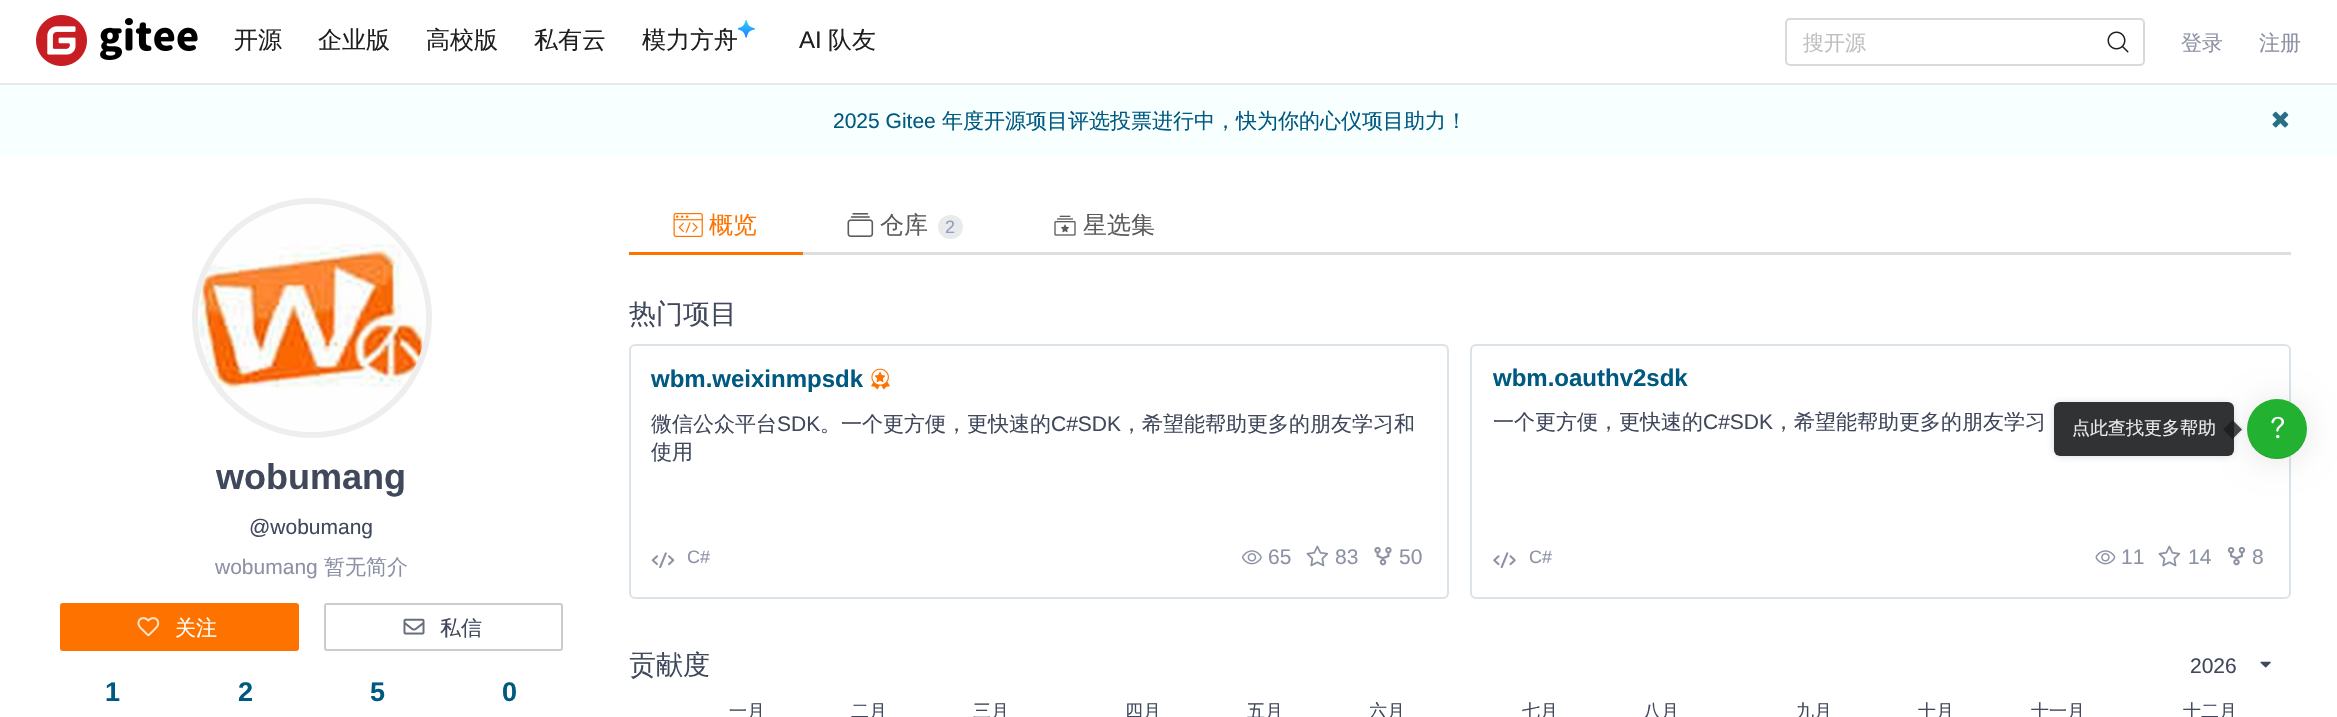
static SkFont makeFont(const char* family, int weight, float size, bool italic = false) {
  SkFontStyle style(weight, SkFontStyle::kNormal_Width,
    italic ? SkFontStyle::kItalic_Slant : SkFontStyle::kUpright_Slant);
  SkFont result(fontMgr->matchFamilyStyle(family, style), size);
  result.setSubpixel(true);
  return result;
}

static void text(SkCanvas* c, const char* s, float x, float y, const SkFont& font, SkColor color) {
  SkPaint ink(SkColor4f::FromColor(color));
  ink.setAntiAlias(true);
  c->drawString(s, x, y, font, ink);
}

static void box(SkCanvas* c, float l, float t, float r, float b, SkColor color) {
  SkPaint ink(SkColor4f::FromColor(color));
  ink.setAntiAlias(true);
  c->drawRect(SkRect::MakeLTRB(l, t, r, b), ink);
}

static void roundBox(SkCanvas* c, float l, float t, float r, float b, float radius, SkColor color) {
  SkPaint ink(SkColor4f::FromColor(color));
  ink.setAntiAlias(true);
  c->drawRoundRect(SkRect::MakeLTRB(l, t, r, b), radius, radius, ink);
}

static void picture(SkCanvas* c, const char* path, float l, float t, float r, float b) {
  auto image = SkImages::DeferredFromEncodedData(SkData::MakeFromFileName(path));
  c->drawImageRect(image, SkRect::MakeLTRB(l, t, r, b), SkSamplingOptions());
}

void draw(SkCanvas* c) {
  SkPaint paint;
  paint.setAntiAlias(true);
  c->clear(0xffffffff);
  box(c, 0, 83, 2337, 85, 0xffe3e9ed);
  picture(c, "img_01.png", 36, 15, 198, 66);
  SkFont face1 = makeFont("WenQuanYi Zen Hei", 500, 24);
  text(c, "开源", 234, 48, face1, 0xff1f1f1f);
  text(c, "企业版", 318, 48, face1, 0xff1f1f1f);
  text(c, "高校版", 426, 48, face1, 0xff1f1f1f);
  text(c, "私有云", 534, 48, face1, 0xff1f1f1f);
  text(c, "模力方舟", 642, 48, face1, 0xff1f1f1f);
  picture(c, "img_02.png", 738, 20, 756, 38);
  SkFont face2 = makeFont("Liberation Sans", 400, 24);
  text(c, "AI", 799, 48, face2, 0xff1f1f1f);
  text(c, "队友", 828, 48, face1, 0xff1f1f1f);
  paint.setStyle(SkPaint::kStroke_Style);
  paint.setStrokeWidth(2);
  paint.setColor(0xffd9d9d9);
  c->drawRoundRect(SkRect::MakeLTRB(1786, 19, 2144, 65), 4, 4, paint);
  SkFont face3 = makeFont("WenQuanYi Zen Hei", 500, 21);
  text(c, "搜开源", 1803, 50, face3, 0xffbfbfbf);
  picture(c, "img_03.png", 2107, 31, 2129, 53);
  text(c, "登录", 2181, 50, face3, 0xff8c92a4);
  text(c, "注册", 2259, 50, face3, 0xff8c92a4);
  box(c, 0, 85, 2337, 156, 0xfff8ffff);
  SkFont face4 = makeFont("Liberation Sans", 400, 21);
  text(c, "2025 Gitee", 833, 128, face4, 0xff005980);
  text(c, "年度开源项目评选投票进行中，快为你的心仪项目助力！", 942, 128, face3, 0xff005980);
  picture(c, "img_04.png", 2272, 111, 2289, 128);
  paint.setStrokeWidth(6);
  paint.setColor(0xffeeeeee);
  c->drawCircle(312, 318, 117, paint);
  picture(c, "img_05.png", 198, 204, 426, 432);
  SkFont face5 = makeFont("Liberation Sans", 700, 36);
  text(c, "wobumang", 216, 489, face5, 0xff40485b);
  text(c, "@wobumang", 249, 534, face4, 0xff40485b);
  text(c, "wobumang", 215, 574, face4, 0xff8c92a4);
  text(c, "暂无简介", 324, 574, face3, 0xff8c92a4);
  roundBox(c, 60, 603, 299, 651, 3, 0xfffe7300);
  picture(c, "img_06.png", 137, 617, 160, 637);
  text(c, "关注", 175, 635, face3, 0xffffffff);
  paint.setStrokeWidth(2);
  paint.setColor(0xffcccccc);
  c->drawRoundRect(SkRect::MakeLTRB(325, 604, 562, 650), 2, 2, paint);
  picture(c, "img_07.png", 403, 618, 425, 635);
  text(c, "私信", 440, 635, face3, 0xff40485b);
  SkFont face6 = makeFont("Liberation Sans", 700, 27);
  text(c, "1", 105, 701, face6, 0xff005980);
  text(c, "2", 238, 701, face6, 0xff005980);
  text(c, "5", 370, 701, face6, 0xff005980);
  text(c, "0", 502, 701, face6, 0xff005980);
  box(c, 803, 252, 2291, 255, 0xffdededf);
  box(c, 629, 252, 803, 255, 0xfffe7300);
  picture(c, "img_08.png", 673, 213, 703, 237);
  text(c, "概览", 709, 233, face1, 0xfffe7300);
  picture(c, "img_09.png", 847, 213, 874, 237);
  text(c, "仓库", 880, 233, face1, 0xff5c5c5c);
  roundBox(c, 938, 215, 963, 239, 12, 0xffe9eaeb);
  SkFont face7 = makeFont("Liberation Sans", 400, 18);
  text(c, "2", 945, 233, face7, 0xff919fbc);
  picture(c, "img_10.png", 1054, 215, 1076, 236);
  text(c, "星选集", 1083, 233, face1, 0xff5c5c5c);
  SkFont face8 = makeFont("WenQuanYi Zen Hei", 500, 27);
  text(c, "热门项目", 629, 323, face8, 0xff40485b);
  paint.setColor(0xffdce3e8);
  c->drawRoundRect(SkRect::MakeLTRB(630, 345, 1448, 598), 5, 5, paint);
  SkFont face9 = makeFont("Liberation Sans", 700, 24);
  text(c, "wbm.weixinmpsdk", 651, 387, face9, 0xff005980);
  picture(c, "img_11.png", 871, 368, 890, 390);
  text(c, "微信公众平台", 651, 431, face3, 0xff40485b);
  text(c, "SDK", 777, 431, face4, 0xff40485b);
  text(c, "。一个更方便，更快速的", 820, 431, face3, 0xff40485b);
  text(c, "C#SDK", 1051, 431, face4, 0xff40485b);
  text(c, "，希望能帮助更多的朋友学习和", 1121, 431, face3, 0xff40485b);
  text(c, "使用", 651, 459, face3, 0xff40485b);
  picture(c, "img_12.png", 651, 552, 675, 568);
  text(c, "C#", 687, 563, face7, 0xff8c92a4);
  picture(c, "img_13.png", 1242, 550, 1262, 565);
  text(c, "65", 1268, 564, face4, 0xff8c92a4);
  picture(c, "img_14.png", 1306, 545, 1329, 567);
  text(c, "83", 1335, 564, face4, 0xff8c92a4);
  picture(c, "img_15.png", 1374, 546, 1392, 566);
  text(c, "50", 1399, 564, face4, 0xff8c92a4);
  c->drawRoundRect(SkRect::MakeLTRB(1471, 345, 2290, 598), 5, 5, paint);
  text(c, "wbm.oauthv2sdk", 1493, 386, face9, 0xff005980);
  text(c, "一个更方便，更快速的", 1493, 429, face3, 0xff40485b);
  text(c, "C#SDK", 1703, 429, face4, 0xff40485b);
  text(c, "，希望能帮助更多的朋友学习", 1773, 429, face3, 0xff40485b);
  picture(c, "img_16.png", 1493, 552, 1516, 569);
  text(c, "C#", 1529, 563, face7, 0xff8c92a4);
  picture(c, "img_17.png", 2095, 550, 2116, 565);
  text(c, "11", 2121, 564, face4, 0xff8c92a4);
  picture(c, "img_14.png", 2158, 545, 2181, 567);
  text(c, "14", 2188, 564, face4, 0xff8c92a4);
  picture(c, "img_18.png", 2227, 547, 2246, 566);
  text(c, "8", 2252, 564, face4, 0xff8c92a4);
  text(c, "贡献度", 629, 674, face8, 0xff40485b);
  text(c, "2026", 2190, 673, face4, 0xff40485b);
  picture(c, "img_19.png", 2260, 661, 2271, 668);
  SkFont face10 = makeFont("WenQuanYi Zen Hei", 500, 18);
  text(c, "一月", 729, 717, face10, 0xff40485b);
  text(c, "二月", 851, 717, face10, 0xff40485b);
  text(c, "三月", 973, 717, face10, 0xff40485b);
  text(c, "四月", 1125, 717, face10, 0xff40485b);
  text(c, "五月", 1247, 717, face10, 0xff40485b);
  text(c, "六月", 1369, 717, face10, 0xff40485b);
  text(c, "七月", 1522, 717, face10, 0xff40485b);
  text(c, "八月", 1643, 717, face10, 0xff40485b);
  text(c, "九月", 1796, 717, face10, 0xff40485b);
  text(c, "十月", 1918, 717, face10, 0xff40485b);
  text(c, "十一月", 2031, 717, face10, 0xff40485b);
  text(c, "十二月", 2183, 717, face10, 0xff40485b);
  c->save();
  c->clipPath(SkPathBuilder(SkPathFillType::kEvenOdd).moveTo(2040, 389).lineTo(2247, 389).lineTo(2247, 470).lineTo(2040, 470).close().moveTo(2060, 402).lineTo(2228, 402).cubicTo(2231.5f, 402, 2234, 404.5f, 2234, 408).lineTo(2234, 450).cubicTo(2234, 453.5f, 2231.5f, 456, 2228, 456).lineTo(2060, 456).cubicTo(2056.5f, 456, 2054, 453.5f, 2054, 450).lineTo(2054, 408).cubicTo(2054, 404.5f, 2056.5f, 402, 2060, 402).close().detach(), true);
  paint.setStyle(SkPaint::kFill_Style);
  paint.setColor(0x738c92a3);
  paint.setMaskFilter(SkMaskFilter::MakeBlur(kNormal_SkBlurStyle, 4.5f));
  c->drawRoundRect(SkRect::MakeLTRB(2055, 404, 2232, 455), 5, 5, paint);
  paint.setMaskFilter(nullptr);
  c->restore();
  paint.setColor(0x1a000000);
  paint.setMaskFilter(SkMaskFilter::MakeBlur(kNormal_SkBlurStyle, 15));
  c->drawRoundRect(SkRect::MakeLTRB(2247, 401, 2307, 461), 30, 30, paint);
  paint.setMaskFilter(nullptr);
  roundBox(c, 2054, 402, 2234, 456, 6, 0xe61b1c1d);
  text(c, "点此查找更多帮助", 2072, 434, face10, 0xffeaeaeb);
  paint.setColor(0x29b3b3b3);
  c->drawPath(SkPathBuilder().moveTo(2234.5f, 420).lineTo(2233.5f, 421).lineTo(2242, 429.5f).lineTo(2233.5f, 438).lineTo(2234.5f, 439).lineTo(2244.5f, 429.5f).close().detach(), paint);
  paint.setColor(0xcf1b1c1d);
  c->drawPath(SkPathBuilder().moveTo(2232.5f, 420).lineTo(2242, 429.5f).lineTo(2232.5f, 439).lineTo(2223, 429.5f).close().detach(), paint);
  paint.setColor(0xff22b130);
  c->drawCircle(2277, 429, 30, paint);
  paint.setColor(0x1a000000);
  c->drawPath(SkPathBuilder().moveTo(2247, 428).cubicTo(2247, 435, 2249, 441, 2252, 446).cubicTo(2269, 470, 2307, 458, 2307, 428).cubicTo(2307, 444, 2294, 458, 2277, 458).cubicTo(2260, 458, 2247, 444, 2247, 428).close().detach(), paint);
  picture(c, "img_20.png", 2271, 416, 2285, 439);
}
